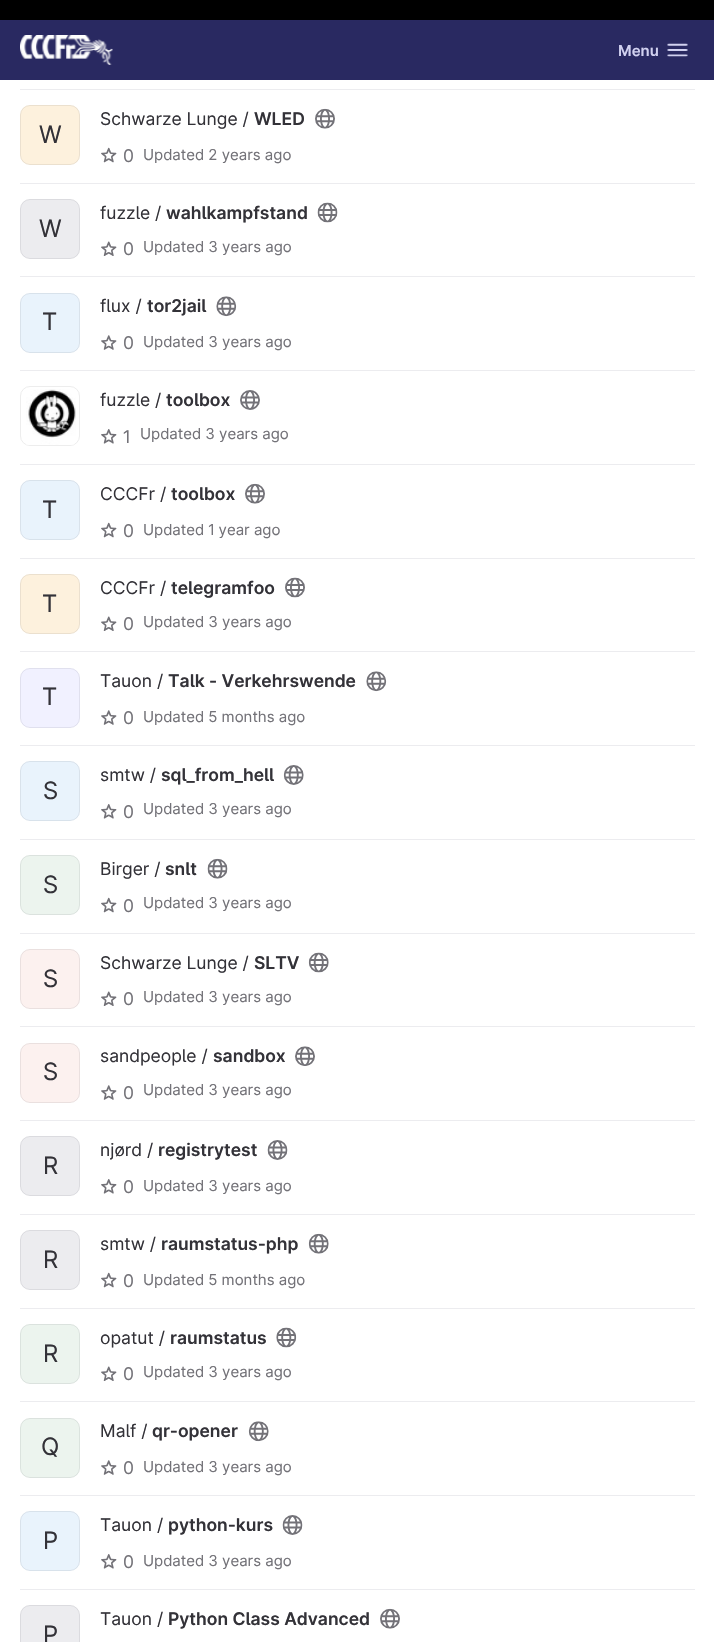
static SkFont makeFont(const char* family, int weight, float size, bool italic = false) {
  SkFontStyle style(weight, SkFontStyle::kNormal_Width,
    italic ? SkFontStyle::kItalic_Slant : SkFontStyle::kUpright_Slant);
  SkFont result(fontMgr->matchFamilyStyle(family, style), size);
  result.setSubpixel(true);
  return result;
}

static void text(SkCanvas* c, const char* s, float x, float y, const SkFont& font, SkColor color) {
  SkPaint ink(SkColor4f::FromColor(color));
  ink.setAntiAlias(true);
  c->drawString(s, x, y, font, ink);
}

static void box(SkCanvas* c, float l, float t, float r, float b, SkColor color) {
  SkPaint ink(SkColor4f::FromColor(color));
  ink.setAntiAlias(true);
  c->drawRect(SkRect::MakeLTRB(l, t, r, b), ink);
}

static void roundBox(SkCanvas* c, float l, float t, float r, float b, float radius, SkColor color) {
  SkPaint ink(SkColor4f::FromColor(color));
  ink.setAntiAlias(true);
  c->drawRoundRect(SkRect::MakeLTRB(l, t, r, b), radius, radius, ink);
}

static void picture(SkCanvas* c, const char* path, float l, float t, float r, float b) {
  auto image = SkImages::DeferredFromEncodedData(SkData::MakeFromFileName(path));
  c->drawImageRect(image, SkRect::MakeLTRB(l, t, r, b), SkSamplingOptions());
}

void draw(SkCanvas* c) {
  SkPaint paint;
  paint.setAntiAlias(true);
  c->clear(0xffffffff);
  box(c, 0, 0, 714, 20, 0xff000000);
  box(c, 0, 20, 714, 80, 0xff292961);
  picture(c, "img_01.png", 20, 35, 113, 65);
  SkFont face1 = makeFont("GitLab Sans", 600, 15);
  text(c, "Menu", 618, 56, face1, 0xffd1d1f0);
  picture(c, "img_02.png", 667, 43, 688, 57);
  box(c, 20, 89, 695, 90, 0xffececef);
  box(c, 20, 183, 695, 184, 0xffececef);
  roundBox(c, 20, 105, 80, 165, 10, 0xfffdf1dd);
  paint.setStyle(SkPaint::kStroke_Style);
  paint.setStrokeWidth(1);
  paint.setColor(0x141f1e24);
  c->drawRoundRect(SkRect::MakeLTRB(20.5f, 105.5f, 79.5f, 164.5f), 9.5f, 9.5f, paint);
  SkFont face2 = makeFont("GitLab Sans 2", 400, 24);
  text(c, "W", 39, 143, face2, 0xff333238);
  SkFont face3 = makeFont("GitLab Sans", 400, 17.5f);
  text(c, "Schwarze Lunge /", 100, 125, face3, 0xff333238);
  SkFont face4 = makeFont("GitLab Sans", 600, 17.5f);
  text(c, "WLED", 254, 125, face4, 0xff333238);
  picture(c, "img_03.png", 315, 108, 335, 129);
  picture(c, "img_04.png", 101, 147, 117, 163);
  text(c, "0", 123, 162, face3, 0xff737278);
  SkFont face5 = makeFont("GitLab Sans", 400, 15);
  text(c, "Updated 2 years ago", 143, 160, face5, 0xff737278);
  box(c, 20, 276, 695, 277, 0xffececef);
  roundBox(c, 20, 199, 80, 259, 10, 0xffececef);
  c->drawRoundRect(SkRect::MakeLTRB(20.5f, 199.5f, 79.5f, 258.5f), 9.5f, 9.5f, paint);
  text(c, "W", 39, 237, face2, 0xff333238);
  text(c, "fuzzle /", 100, 219, face3, 0xff333238);
  text(c, "wahlkampfstand", 166, 219, face4, 0xff333238);
  picture(c, "img_05.png", 317, 202, 338, 223);
  picture(c, "img_06.png", 101, 241, 117, 256);
  text(c, "0", 123, 255, face3, 0xff737278);
  text(c, "Updated 3 years ago", 143, 252, face5, 0xff737278);
  box(c, 20, 370, 695, 371, 0xffececef);
  roundBox(c, 20, 293, 80, 353, 10, 0xffe9f3fc);
  c->drawRoundRect(SkRect::MakeLTRB(20.5f, 293.5f, 79.5f, 352.5f), 9.5f, 9.5f, paint);
  text(c, "T", 42, 330, face2, 0xff333238);
  text(c, "flux /", 100, 312, face3, 0xff333238);
  text(c, "tor2jail", 147, 312, face4, 0xff333238);
  picture(c, "img_07.png", 216, 296, 237, 317);
  picture(c, "img_08.png", 101, 335, 117, 350);
  text(c, "0", 123, 349, face3, 0xff737278);
  text(c, "Updated 3 years ago", 143, 347, face5, 0xff737278);
  box(c, 20, 464, 695, 465, 0xffececef);
  paint.setColor(0xffededed);
  c->drawRoundRect(SkRect::MakeLTRB(20.5f, 386.5f, 79.5f, 445.5f), 9.5f, 9.5f, paint);
  picture(c, "img_09.png", 26, 389, 76, 445);
  text(c, "fuzzle /", 100, 406, face3, 0xff333238);
  text(c, "toolbox", 166, 406, face4, 0xff333238);
  picture(c, "img_10.png", 240, 390, 260, 410);
  picture(c, "img_11.png", 101, 429, 117, 444);
  text(c, "1", 123, 443, face3, 0xff737278);
  text(c, "Updated 3 years ago", 140, 439, face5, 0xff737278);
  box(c, 20, 558, 695, 559, 0xffececef);
  roundBox(c, 20, 480, 80, 540, 10, 0xffe9f3fc);
  paint.setColor(0x141f1e24);
  c->drawRoundRect(SkRect::MakeLTRB(20.5f, 480.5f, 79.5f, 539.5f), 9.5f, 9.5f, paint);
  text(c, "T", 42, 518, face2, 0xff333238);
  text(c, "CCCFr /", 100, 500, face3, 0xff333238);
  text(c, "toolbox", 171, 500, face4, 0xff333238);
  picture(c, "img_12.png", 245, 483, 265, 504);
  picture(c, "img_04.png", 101, 522, 117, 538);
  text(c, "0", 123, 537, face3, 0xff737278);
  text(c, "Updated 1 year ago", 143, 535, face5, 0xff737278);
  box(c, 20, 651, 695, 652, 0xffececef);
  roundBox(c, 20, 574, 80, 634, 10, 0xfffdf1dd);
  c->drawRoundRect(SkRect::MakeLTRB(20.5f, 574.5f, 79.5f, 633.5f), 9.5f, 9.5f, paint);
  text(c, "T", 42, 612, face2, 0xff333238);
  text(c, "CCCFr /", 100, 594, face3, 0xff333238);
  text(c, "telegramfoo", 171, 594, face4, 0xff333238);
  picture(c, "img_13.png", 285, 577, 305, 598);
  picture(c, "img_06.png", 101, 616, 117, 631);
  text(c, "0", 123, 630, face3, 0xff737278);
  text(c, "Updated 3 years ago", 143, 627, face5, 0xff737278);
  box(c, 20, 745, 695, 746, 0xffececef);
  roundBox(c, 20, 668, 80, 728, 10, 0xfff1f1ff);
  c->drawRoundRect(SkRect::MakeLTRB(20.5f, 668.5f, 79.5f, 727.5f), 9.5f, 9.5f, paint);
  text(c, "T", 42, 705, face2, 0xff333238);
  text(c, "Tauon /", 100, 687, face3, 0xff333238);
  text(c, "Talk - Verkehrswende", 168, 687, face4, 0xff333238);
  picture(c, "img_07.png", 366, 671, 387, 692);
  picture(c, "img_08.png", 101, 710, 117, 725);
  text(c, "0", 123, 724, face3, 0xff737278);
  text(c, "Updated 5 months ago", 143, 722, face5, 0xff737278);
  box(c, 20, 839, 695, 840, 0xffececef);
  roundBox(c, 20, 761, 80, 821, 10, 0xffe9f3fc);
  c->drawRoundRect(SkRect::MakeLTRB(20.5f, 761.5f, 79.5f, 820.5f), 9.5f, 9.5f, paint);
  text(c, "S", 43, 799, face2, 0xff333238);
  text(c, "smtw /", 100, 781, face3, 0xff333238);
  text(c, "sql_from_hell", 161, 781, face4, 0xff333238);
  picture(c, "img_14.png", 283, 765, 304, 785);
  picture(c, "img_11.png", 101, 804, 117, 819);
  text(c, "0", 123, 818, face3, 0xff737278);
  text(c, "Updated 3 years ago", 143, 814, face5, 0xff737278);
  box(c, 20, 933, 695, 934, 0xffececef);
  roundBox(c, 20, 855, 80, 915, 10, 0xffecf4ee);
  c->drawRoundRect(SkRect::MakeLTRB(20.5f, 855.5f, 79.5f, 914.5f), 9.5f, 9.5f, paint);
  text(c, "S", 43, 893, face2, 0xff333238);
  text(c, "Birger /", 100, 875, face3, 0xff333238);
  text(c, "snlt", 165, 875, face4, 0xff333238);
  picture(c, "img_15.png", 207, 858, 228, 879);
  picture(c, "img_04.png", 101, 897, 117, 913);
  text(c, "0", 123, 912, face3, 0xff737278);
  text(c, "Updated 3 years ago", 143, 908, face5, 0xff737278);
  box(c, 20, 1026, 695, 1027, 0xffececef);
  roundBox(c, 20, 949, 80, 1009, 10, 0xfffcf1ef);
  c->drawRoundRect(SkRect::MakeLTRB(20.5f, 949.5f, 79.5f, 1008.5f), 9.5f, 9.5f, paint);
  text(c, "S", 43, 987, face2, 0xff333238);
  text(c, "Schwarze Lunge /", 100, 969, face3, 0xff333238);
  text(c, "SLTV", 254, 969, face4, 0xff333238);
  picture(c, "img_16.png", 308, 952, 329, 973);
  picture(c, "img_06.png", 101, 991, 117, 1006);
  text(c, "0", 123, 1005, face3, 0xff737278);
  text(c, "Updated 3 years ago", 143, 1002, face5, 0xff737278);
  box(c, 20, 1120, 695, 1121, 0xffececef);
  roundBox(c, 20, 1043, 80, 1103, 10, 0xfffcf1ef);
  c->drawRoundRect(SkRect::MakeLTRB(20.5f, 1043.5f, 79.5f, 1102.5f), 9.5f, 9.5f, paint);
  text(c, "S", 43, 1080, face2, 0xff333238);
  text(c, "sandpeople /", 100, 1062, face3, 0xff333238);
  text(c, "sandbox", 213, 1062, face4, 0xff333238);
  picture(c, "img_17.png", 295, 1046, 315, 1066);
  picture(c, "img_08.png", 101, 1085, 117, 1100);
  text(c, "0", 123, 1099, face3, 0xff737278);
  text(c, "Updated 3 years ago", 143, 1095, face5, 0xff737278);
  box(c, 20, 1214, 695, 1215, 0xffececef);
  roundBox(c, 20, 1136, 80, 1196, 10, 0xffececef);
  c->drawRoundRect(SkRect::MakeLTRB(20.5f, 1136.5f, 79.5f, 1195.5f), 9.5f, 9.5f, paint);
  text(c, "R", 43, 1174, face2, 0xff333238);
  text(c, "njørd /", 100, 1156, face3, 0xff333238);
  text(c, "registrytest", 158, 1156, face4, 0xff333238);
  picture(c, "img_18.png", 267, 1140, 288, 1160);
  picture(c, "img_11.png", 101, 1179, 117, 1194);
  text(c, "0", 123, 1193, face3, 0xff737278);
  text(c, "Updated 3 years ago", 143, 1191, face5, 0xff737278);
  box(c, 20, 1308, 695, 1309, 0xffececef);
  roundBox(c, 20, 1230, 80, 1290, 10, 0xffececef);
  c->drawRoundRect(SkRect::MakeLTRB(20.5f, 1230.5f, 79.5f, 1289.5f), 9.5f, 9.5f, paint);
  text(c, "R", 43, 1268, face2, 0xff333238);
  text(c, "smtw /", 100, 1250, face3, 0xff333238);
  text(c, "raumstatus-php", 161, 1250, face4, 0xff333238);
  picture(c, "img_19.png", 308, 1233, 329, 1254);
  picture(c, "img_04.png", 101, 1272, 117, 1288);
  text(c, "0", 123, 1287, face3, 0xff737278);
  text(c, "Updated 5 months ago", 143, 1285, face5, 0xff737278);
  box(c, 20, 1401, 695, 1402, 0xffececef);
  roundBox(c, 20, 1324, 80, 1384, 10, 0xffecf4ee);
  c->drawRoundRect(SkRect::MakeLTRB(20.5f, 1324.5f, 79.5f, 1383.5f), 9.5f, 9.5f, paint);
  text(c, "R", 43, 1362, face2, 0xff333238);
  text(c, "opatut /", 100, 1344, face3, 0xff333238);
  text(c, "raumstatus", 170, 1344, face4, 0xff333238);
  picture(c, "img_20.png", 276, 1327, 297, 1348);
  picture(c, "img_06.png", 101, 1366, 117, 1381);
  text(c, "0", 123, 1380, face3, 0xff737278);
  text(c, "Updated 3 years ago", 143, 1377, face5, 0xff737278);
  box(c, 20, 1495, 695, 1496, 0xffececef);
  roundBox(c, 20, 1418, 80, 1478, 10, 0xffecf4ee);
  c->drawRoundRect(SkRect::MakeLTRB(20.5f, 1418.5f, 79.5f, 1477.5f), 9.5f, 9.5f, paint);
  SkFont face6 = makeFont("GitLab Sans", 400, 24);
  text(c, "Q", 41, 1455, face6, 0xff333238);
  text(c, "Malf /", 100, 1437, face3, 0xff333238);
  text(c, "qr-opener", 152, 1437, face4, 0xff333238);
  picture(c, "img_21.png", 248, 1421, 269, 1442);
  picture(c, "img_08.png", 101, 1460, 117, 1475);
  text(c, "0", 123, 1474, face3, 0xff737278);
  text(c, "Updated 3 years ago", 143, 1472, face5, 0xff737278);
  box(c, 20, 1589, 695, 1590, 0xffececef);
  roundBox(c, 20, 1511, 80, 1571, 10, 0xffe9f3fc);
  c->drawRoundRect(SkRect::MakeLTRB(20.5f, 1511.5f, 79.5f, 1570.5f), 9.5f, 9.5f, paint);
  text(c, "P", 43, 1549, face2, 0xff333238);
  text(c, "Tauon /", 100, 1531, face3, 0xff333238);
  text(c, "python-kurs", 168, 1531, face4, 0xff333238);
  picture(c, "img_18.png", 282, 1515, 303, 1535);
  picture(c, "img_11.png", 101, 1554, 117, 1569);
  text(c, "0", 123, 1568, face3, 0xff737278);
  text(c, "Updated 3 years ago", 143, 1566, face5, 0xff737278);
  text(c, "Tauon /", 100, 1625, face3, 0xff333238);
  text(c, "Python Class Advanced", 168, 1625, face4, 0xff333238);
  picture(c, "img_03.png", 380, 1608, 400, 1629);
  roundBox(c, 20, 1605, 80, 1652, 10, 0xffececef);
  c->drawRoundRect(SkRect::MakeLTRB(20.5f, 1605.5f, 79.5f, 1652.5f), 9.5f, 9.5f, paint);
  text(c, "P", 43, 1643, face2, 0xff333238);
}
